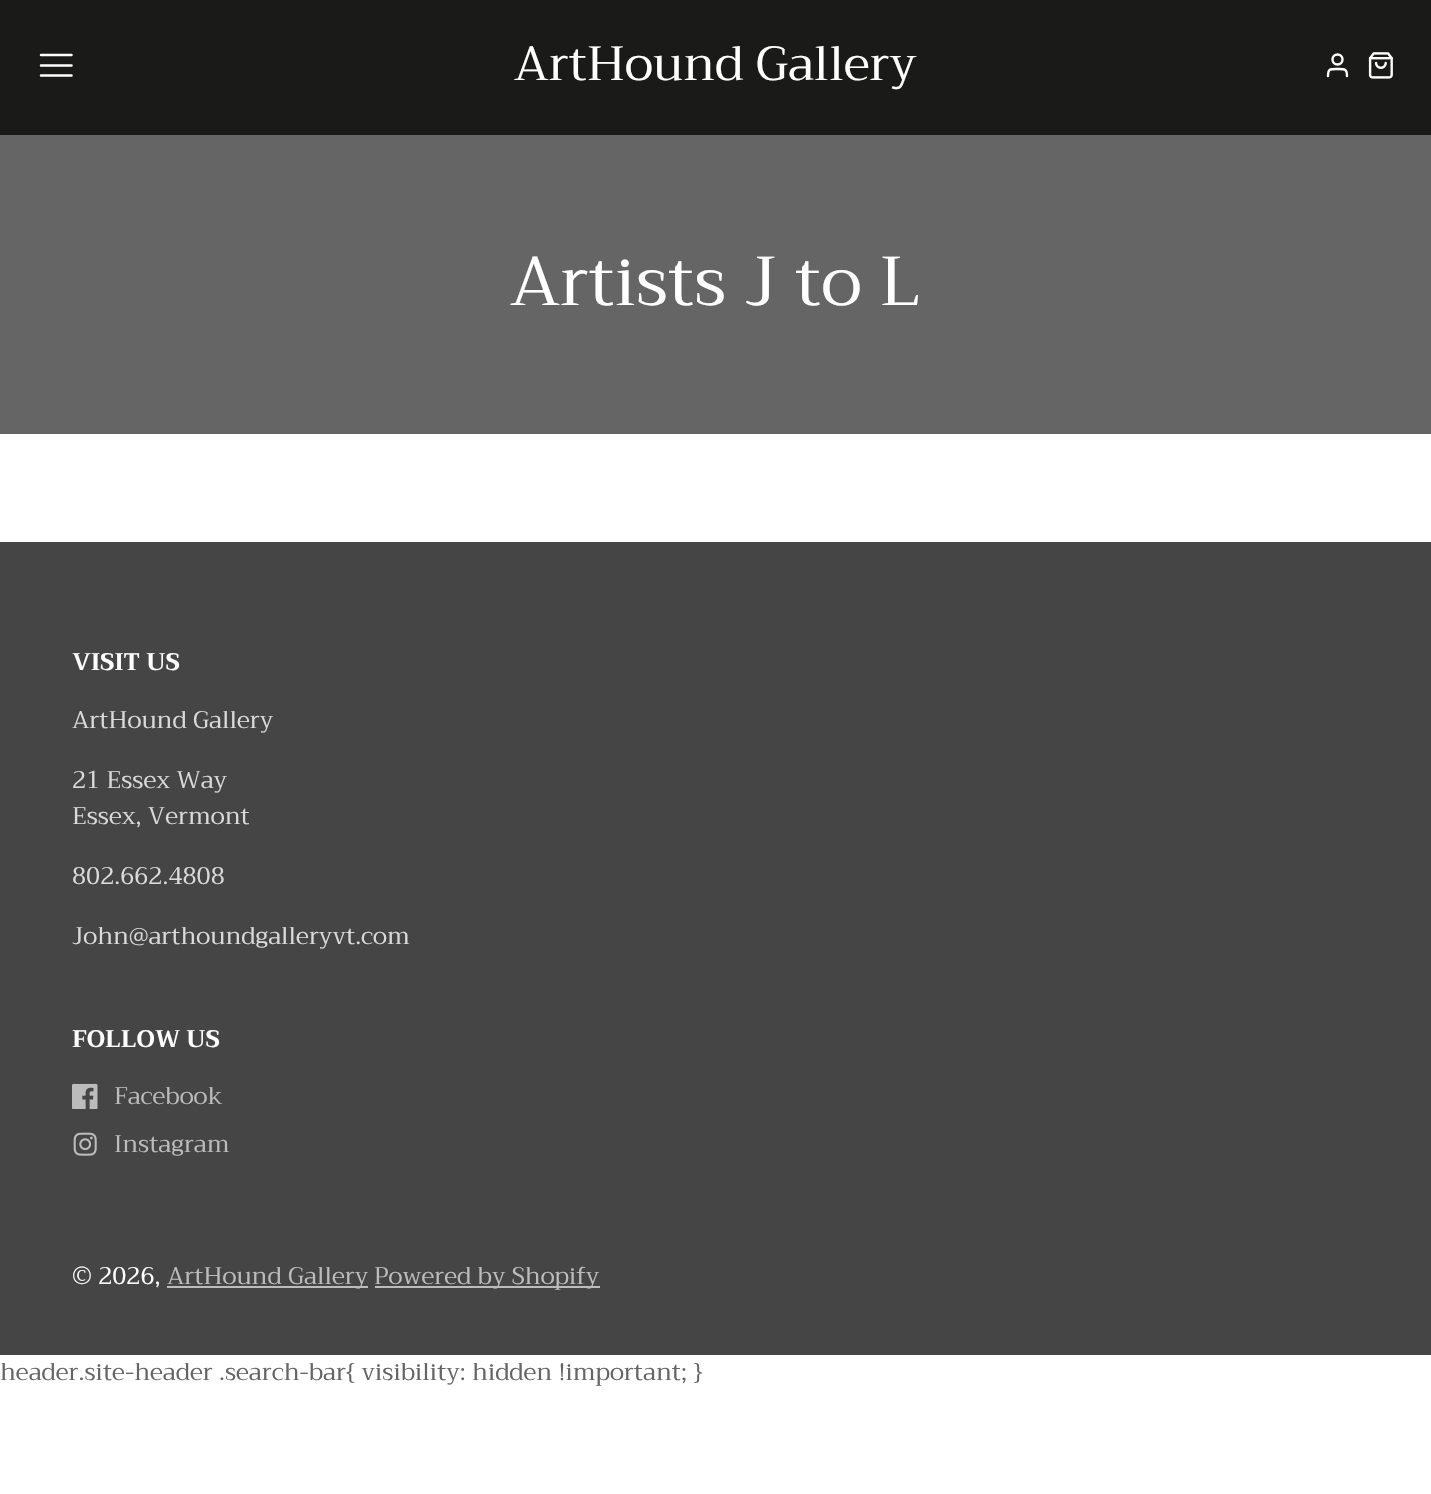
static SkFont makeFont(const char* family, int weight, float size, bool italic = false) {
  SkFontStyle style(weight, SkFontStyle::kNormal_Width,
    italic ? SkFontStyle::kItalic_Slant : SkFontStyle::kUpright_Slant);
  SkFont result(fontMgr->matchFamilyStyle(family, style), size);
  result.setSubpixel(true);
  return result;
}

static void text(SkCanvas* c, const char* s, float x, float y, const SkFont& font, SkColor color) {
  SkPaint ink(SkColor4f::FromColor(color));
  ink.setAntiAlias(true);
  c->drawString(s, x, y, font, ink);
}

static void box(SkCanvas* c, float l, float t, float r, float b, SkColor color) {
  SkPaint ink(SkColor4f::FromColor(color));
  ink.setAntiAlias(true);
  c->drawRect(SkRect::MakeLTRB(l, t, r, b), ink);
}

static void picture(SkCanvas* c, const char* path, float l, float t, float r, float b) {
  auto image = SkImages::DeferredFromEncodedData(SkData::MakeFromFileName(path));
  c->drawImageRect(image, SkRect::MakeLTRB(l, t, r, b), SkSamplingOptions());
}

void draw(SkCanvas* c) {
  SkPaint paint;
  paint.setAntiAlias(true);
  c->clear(0xffffffff);
  box(c, 0, 0, 1431, 135, 0xff1a1b18);
  paint.setStyle(SkPaint::kStroke_Style);
  paint.setStrokeWidth(2.5f);
  paint.setStrokeCap(SkPaint::kRound_Cap);
  paint.setStrokeJoin(SkPaint::kRound_Join);
  paint.setColor(0xffffffff);
  c->drawPath(SkPathBuilder().moveTo(41, 65.5f).lineTo(71.5f, 65.5f).moveTo(41, 55).lineTo(71.5f, 55).moveTo(41, 75.5f).lineTo(71.5f, 75.5f).detach(), paint);
  SkFont face1 = makeFont("Trirong", 400, 48);
  text(c, "ArtHound Gallery", 514, 80, face1, 0xffffffff);
  paint.setStrokeWidth(2.4f);
  paint.setStrokeCap(SkPaint::kButt_Cap);
  paint.setStrokeJoin(SkPaint::kMiter_Join);
  c->drawCircle(1337.5f, 59.5f, 5, paint);
  paint.setStrokeCap(SkPaint::kRound_Cap);
  paint.setStrokeJoin(SkPaint::kRound_Join);
  c->drawPath(SkPathBuilder().moveTo(1347, 76).cubicTo(1347, 68.5f, 1344, 69, 1337.5f, 69).cubicTo(1330.5f, 69, 1328, 68.5f, 1328, 76).detach(), paint);
  picture(c, "img_01.png", 1368, 52, 1393, 79);
  box(c, 0, 135, 1431, 434, 0xff666565);
  SkFont face2 = makeFont("Trirong", 400, 69);
  text(c, "Artists J to L", 510, 305, face2, 0xffffffff);
  box(c, 0, 542, 1431, 1355, 0xff454545);
  SkFont face3 = makeFont("Trirong", 700, 24);
  text(c, "VISIT US", 72, 670, face3, 0xffffffff);
  SkFont face4 = makeFont("Trirong", 400, 24);
  text(c, "ArtHound Gallery", 72, 728, face4, 0xffdadada);
  text(c, "21 Essex Way", 72, 788, face4, 0xffdadada);
  text(c, "Essex, Vermont", 72, 824, face4, 0xffdadada);
  text(c, "802.662.4808", 72, 884, face4, 0xffdadada);
  text(c, "John@arthoundgalleryvt.com", 72, 944, face4, 0xffdadada);
  text(c, "FOLLOW US", 72, 1047, face3, 0xffffffff);
  picture(c, "img_02.png", 72, 1083, 98, 1109);
  text(c, "Facebook", 114, 1104, face4, 0xffbcbcbc);
  picture(c, "img_03.png", 73, 1132, 97, 1156);
  text(c, "Instagram", 114, 1152, face4, 0xffbcbcbc);
  text(c, "© 2026,", 72, 1284, face4, 0xffffffff);
  box(c, 167, 1286, 368, 1288, 0xffbcbcbc);
  text(c, "ArtHound Gallery", 167, 1284, face4, 0xffbcbcbc);
  box(c, 375, 1286, 600, 1288, 0xffbcbcbc);
  text(c, "Powered by Shopify", 374, 1284, face4, 0xffbcbcbc);
  text(c, "header.site-header .search-bar{ visibility: hidden !important; }", 0, 1380, face4, 0xff666565);
}
